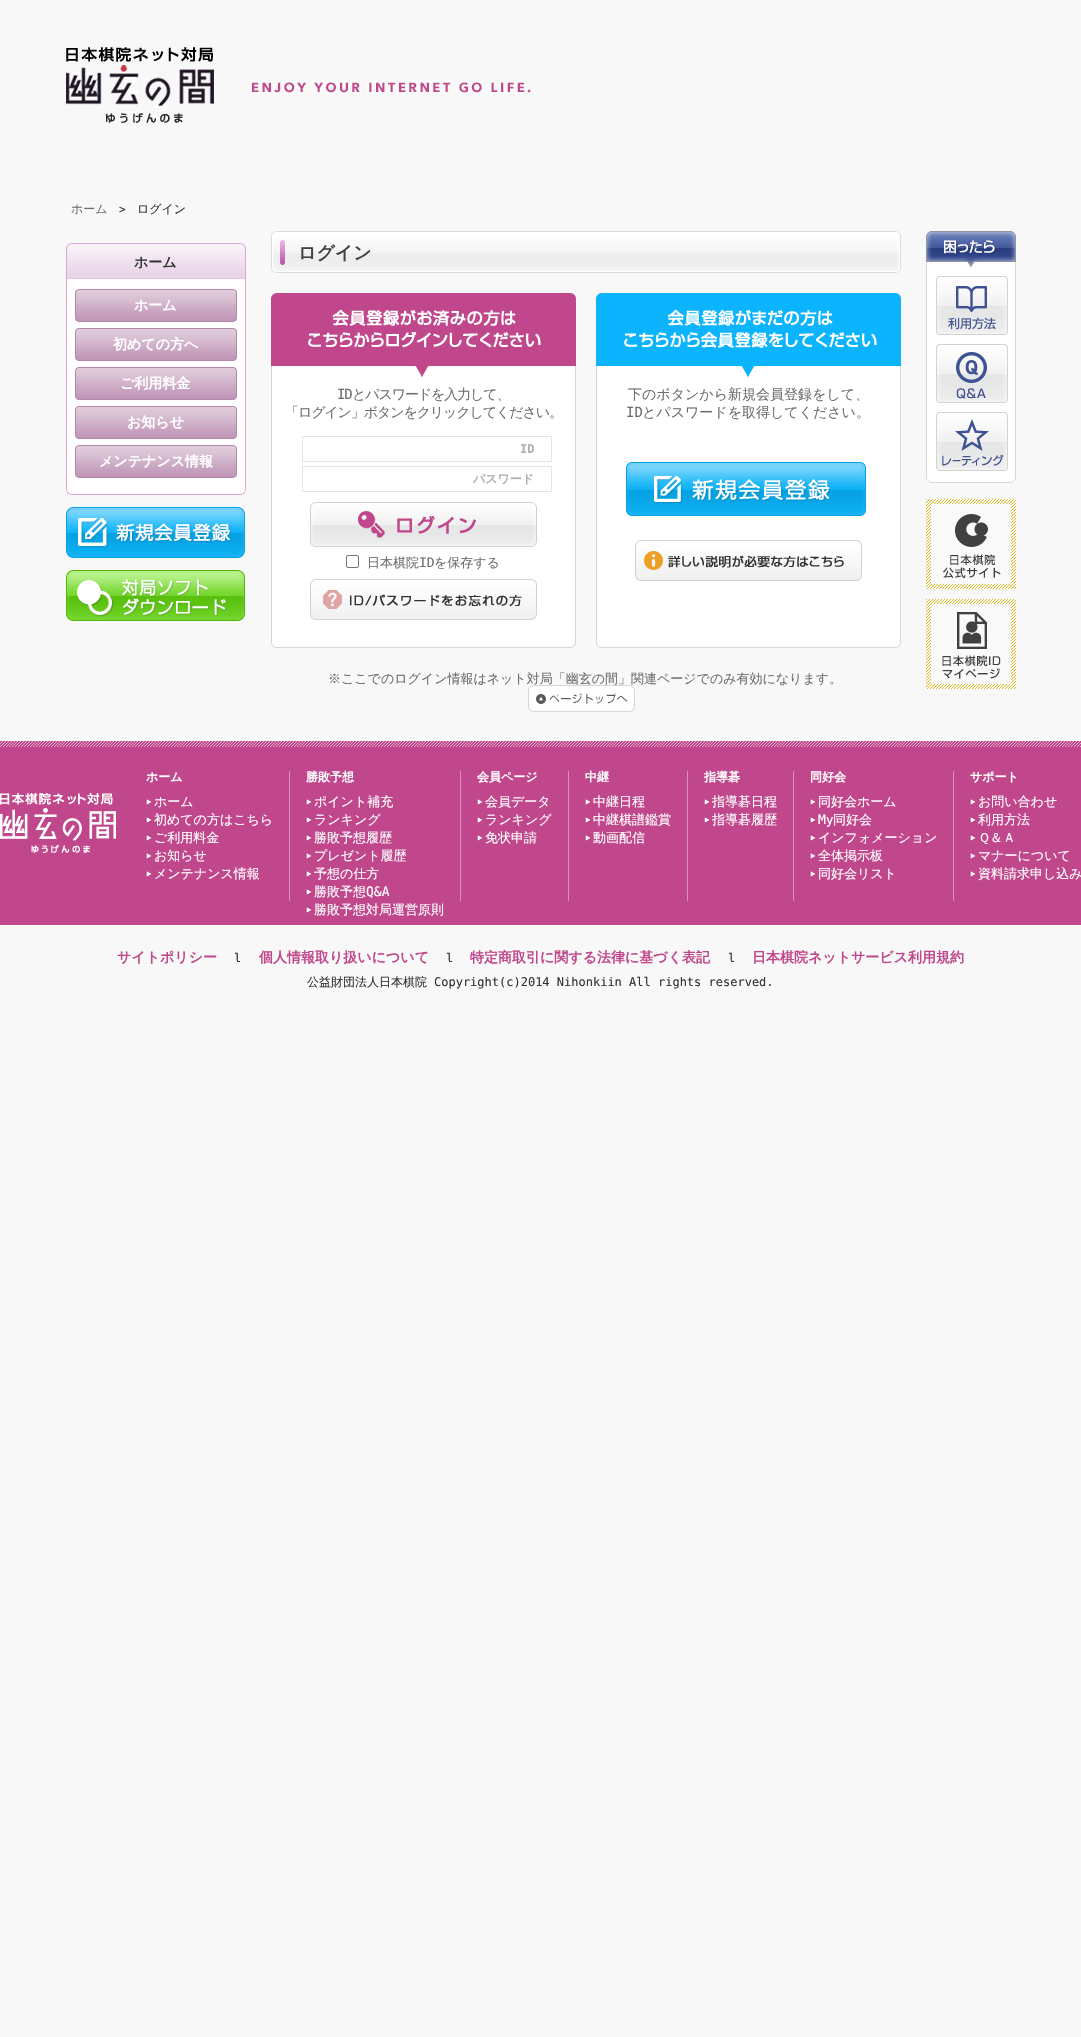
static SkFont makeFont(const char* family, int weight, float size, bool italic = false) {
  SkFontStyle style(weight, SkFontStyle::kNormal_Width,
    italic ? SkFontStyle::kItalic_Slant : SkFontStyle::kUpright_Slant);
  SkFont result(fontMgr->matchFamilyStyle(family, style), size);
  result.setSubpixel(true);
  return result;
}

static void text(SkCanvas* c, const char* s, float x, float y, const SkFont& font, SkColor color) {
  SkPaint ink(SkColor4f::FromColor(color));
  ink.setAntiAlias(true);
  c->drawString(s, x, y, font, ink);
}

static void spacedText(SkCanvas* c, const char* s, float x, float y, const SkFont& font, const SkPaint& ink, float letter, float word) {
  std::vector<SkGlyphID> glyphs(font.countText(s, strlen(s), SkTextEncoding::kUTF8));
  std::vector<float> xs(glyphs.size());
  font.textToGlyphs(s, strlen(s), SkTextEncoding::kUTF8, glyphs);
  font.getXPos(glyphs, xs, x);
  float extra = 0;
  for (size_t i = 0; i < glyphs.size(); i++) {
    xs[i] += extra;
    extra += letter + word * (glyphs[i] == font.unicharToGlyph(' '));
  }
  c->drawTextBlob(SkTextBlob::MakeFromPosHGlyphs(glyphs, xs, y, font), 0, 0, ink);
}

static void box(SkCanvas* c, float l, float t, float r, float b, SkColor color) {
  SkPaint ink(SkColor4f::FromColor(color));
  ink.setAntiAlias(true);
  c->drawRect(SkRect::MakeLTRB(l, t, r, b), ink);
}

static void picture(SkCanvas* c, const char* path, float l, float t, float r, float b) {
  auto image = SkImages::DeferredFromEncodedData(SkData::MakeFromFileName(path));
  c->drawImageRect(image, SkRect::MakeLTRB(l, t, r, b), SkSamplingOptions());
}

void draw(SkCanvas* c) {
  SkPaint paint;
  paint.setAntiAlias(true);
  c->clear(0xfff8f8f8);
  picture(c, "img_01.png", 66, 47, 533, 123);
  SkFont face1 = makeFont("WenQuanYi Zen Hei", 500, 12);
  text(c, "ホーム", 71, 213, face1, 0xff6e6e6e);
  SkFont face2 = makeFont("DejaVu Sans Mono", 400, 11);
  text(c, ">", 119, 213, face2, 0xff333333);
  text(c, "ログイン", 137, 213, face1, 0xff333333);
  picture(c, "img_02.png", 66, 243, 246, 279);
  SkFont face3 = makeFont("WenQuanYi Zen Hei", 700, 14);
  text(c, "ホーム", 134, 267, face3, 0xff333333);
  box(c, 67, 279, 245, 484, 0xffffffff);
  box(c, 245, 279, 246, 484, 0xffdda6d4);
  box(c, 66, 279, 67, 484, 0xffdda6d4);
  picture(c, "img_03.png", 75, 289, 237, 322);
  text(c, "ホーム", 134, 310, face3, 0xffffffff);
  picture(c, "img_03.png", 75, 328, 237, 361);
  text(c, "初めての方へ", 113, 349, face3, 0xffffffff);
  picture(c, "img_03.png", 75, 367, 237, 400);
  text(c, "ご利用料金", 120, 388, face3, 0xffffffff);
  picture(c, "img_03.png", 75, 406, 237, 439);
  text(c, "お知らせ", 127, 427, face3, 0xffffffff);
  picture(c, "img_03.png", 75, 445, 237, 478);
  text(c, "メンテナンス情報", 99, 466, face3, 0xffffffff);
  picture(c, "img_04.png", 66, 484, 246, 495);
  picture(c, "img_05.png", 66, 507, 245, 558);
  picture(c, "img_06.png", 66, 570, 245, 621);
  picture(c, "img_07.png", 271, 231, 901, 273);
  SkFont face4 = makeFont("WenQuanYi Zen Hei", 700, 18);
  text(c, "ログイン", 298, 259, face4, 0xff424242);
  picture(c, "img_08.png", 271, 293, 576, 648);
  SkFont face5 = makeFont("DejaVu Sans Mono", 400, 14);
  paint.setColor(0xff6e6e6e);
  spacedText(c, "ID", 337, 399, face5, paint, -1.1f, 0);
  SkFont face6 = makeFont("WenQuanYi Zen Hei", 500, 14);
  spacedText(c, "とパスワードを入力して、", 352, 399, face6, paint, -1.1f, 0);
  spacedText(c, "「ログイン」ボタンをクリックしてください。", 285, 417, face6, paint, -1.1f, 0);
  paint.setStyle(SkPaint::kStroke_Style);
  paint.setStrokeWidth(1);
  paint.setColor(0xffe4e4e4);
  c->drawRect(SkRect::MakeLTRB(302.5f, 436.5f, 551.5f, 461.5f), paint);
  SkFont face7 = makeFont("DejaVu Sans Mono", 700, 12);
  text(c, "ID", 520, 453, face7, 0xffb0adad);
  c->drawRect(SkRect::MakeLTRB(302.5f, 466.5f, 551.5f, 491.5f), paint);
  SkFont face8 = makeFont("WenQuanYi Zen Hei", 700, 12);
  text(c, "パスワード", 473, 483, face8, 0xffb0adad);
  picture(c, "img_09.png", 310, 502, 537, 547);
  paint.setColor(0xff767676);
  c->drawRoundRect(SkRect::MakeLTRB(346.5f, 555.5f, 358.5f, 567.5f), 1.5f, 1.5f, paint);
  SkFont face9 = makeFont("WenQuanYi Zen Hei", 500, 13);
  text(c, "日本棋院", 367, 567, face9, 0xff6e6e6e);
  SkFont face10 = makeFont("DejaVu Sans Mono", 400, 13);
  text(c, "ID", 419, 567, face10, 0xff6e6e6e);
  text(c, "を保存する", 434, 567, face9, 0xff6e6e6e);
  picture(c, "img_10.png", 310, 579, 537, 620);
  picture(c, "img_11.png", 596, 293, 901, 648);
  text(c, "下のボタンから新規会員登録をして、", 628, 399, face6, 0xff6e6e6e);
  text(c, "ID", 626, 417, face5, 0xff6e6e6e);
  text(c, "とパスワードを取得してください。", 642, 417, face6, 0xff6e6e6e);
  picture(c, "img_12.png", 626, 462, 866, 516);
  picture(c, "img_13.png", 635, 540, 862, 581);
  text(c, "※ここでのログイン情報はネット対局「幽玄の間」関連ページでのみ有効になります。", 328, 683, face9, 0xff6e6e6e);
  picture(c, "img_14.png", 926, 231, 1016, 483);
  picture(c, "img_15.png", 936, 276, 1008, 335);
  picture(c, "img_16.png", 936, 344, 1008, 403);
  picture(c, "img_17.png", 936, 412, 1008, 471);
  picture(c, "img_18.png", 926, 499, 1016, 589);
  picture(c, "img_19.png", 926, 599, 1016, 689);
  picture(c, "img_20.png", 528, 685, 635, 712);
  picture(c, "img_21.png", 0, 741, 1081, 925);
  picture(c, "img_22.png", 0, 793, 116, 853);
  box(c, 289, 771, 290, 901, 0xffd991b9);
  text(c, "ホーム", 146, 781, face8, 0xffffffff);
  picture(c, "img_23.png", 146, 799, 152, 805);
  text(c, "ホーム", 154, 806, face9, 0xffffffff);
  picture(c, "img_23.png", 146, 817, 152, 823);
  text(c, "初めての方はこちら", 154, 824, face9, 0xffffffff);
  picture(c, "img_23.png", 146, 835, 152, 841);
  text(c, "ご利用料金", 154, 842, face9, 0xffffffff);
  picture(c, "img_23.png", 146, 853, 152, 859);
  text(c, "お知らせ", 154, 860, face9, 0xffffffff);
  picture(c, "img_23.png", 146, 871, 152, 877);
  text(c, "メンテナンス情報", 154, 878, face9, 0xffffffff);
  box(c, 460, 771, 461, 901, 0xffd991b9);
  text(c, "勝敗予想", 306, 781, face8, 0xffffffff);
  picture(c, "img_23.png", 306, 799, 312, 805);
  text(c, "ポイント補充", 314, 806, face9, 0xffffffff);
  picture(c, "img_23.png", 306, 817, 312, 823);
  text(c, "ランキング", 314, 824, face9, 0xffffffff);
  picture(c, "img_23.png", 306, 835, 312, 841);
  text(c, "勝敗予想履歴", 314, 842, face9, 0xffffffff);
  picture(c, "img_23.png", 306, 853, 312, 859);
  text(c, "プレゼント履歴", 314, 860, face9, 0xffffffff);
  picture(c, "img_23.png", 306, 871, 312, 877);
  text(c, "予想の仕方", 314, 878, face9, 0xffffffff);
  picture(c, "img_23.png", 306, 889, 312, 895);
  text(c, "勝敗予想", 314, 896, face9, 0xffffffff);
  text(c, "Q&A", 366, 896, face10, 0xffffffff);
  picture(c, "img_23.png", 306, 907, 312, 913);
  text(c, "勝敗予想対局運営原則", 314, 914, face9, 0xffffffff);
  box(c, 568, 771, 569, 901, 0xffd991b9);
  text(c, "会員ページ", 477, 781, face8, 0xffffffff);
  picture(c, "img_23.png", 477, 799, 483, 805);
  text(c, "会員データ", 485, 806, face9, 0xffffffff);
  picture(c, "img_23.png", 477, 817, 483, 823);
  text(c, "ランキング", 485, 824, face9, 0xffffffff);
  picture(c, "img_23.png", 477, 835, 483, 841);
  text(c, "免状申請", 485, 842, face9, 0xffffffff);
  box(c, 687, 771, 688, 901, 0xffd991b9);
  text(c, "中継", 585, 781, face8, 0xffffffff);
  picture(c, "img_23.png", 585, 799, 591, 805);
  text(c, "中継日程", 593, 806, face9, 0xffffffff);
  picture(c, "img_23.png", 585, 817, 591, 823);
  text(c, "中継棋譜鑑賞", 593, 824, face9, 0xffffffff);
  picture(c, "img_23.png", 585, 835, 591, 841);
  text(c, "動画配信", 593, 842, face9, 0xffffffff);
  box(c, 793, 771, 794, 901, 0xffd991b9);
  text(c, "指導碁", 704, 781, face8, 0xffffffff);
  picture(c, "img_23.png", 704, 799, 710, 805);
  text(c, "指導碁日程", 712, 806, face9, 0xffffffff);
  picture(c, "img_23.png", 704, 817, 710, 823);
  text(c, "指導碁履歴", 712, 824, face9, 0xffffffff);
  box(c, 953, 771, 954, 901, 0xffd991b9);
  text(c, "同好会", 810, 781, face8, 0xffffffff);
  picture(c, "img_23.png", 810, 799, 816, 805);
  text(c, "同好会ホーム", 818, 806, face9, 0xffffffff);
  picture(c, "img_23.png", 810, 817, 816, 823);
  text(c, "My", 818, 824, face10, 0xffffffff);
  text(c, "同好会", 833, 824, face9, 0xffffffff);
  picture(c, "img_23.png", 810, 835, 816, 841);
  text(c, "インフォメーション", 818, 842, face9, 0xffffffff);
  picture(c, "img_23.png", 810, 853, 816, 859);
  text(c, "全体掲示板", 818, 860, face9, 0xffffffff);
  picture(c, "img_23.png", 810, 871, 816, 877);
  text(c, "同好会リスト", 818, 878, face9, 0xffffffff);
  text(c, "サポート", 970, 781, face8, 0xffffffff);
  picture(c, "img_23.png", 970, 799, 976, 805);
  text(c, "お問い合わせ", 978, 806, face9, 0xffffffff);
  picture(c, "img_23.png", 970, 817, 976, 823);
  text(c, "利用方法", 978, 824, face9, 0xffffffff);
  picture(c, "img_23.png", 970, 835, 976, 841);
  text(c, "Ｑ＆Ａ", 978, 842, face9, 0xffffffff);
  picture(c, "img_23.png", 970, 853, 976, 859);
  text(c, "マナーについて", 978, 860, face9, 0xffffffff);
  picture(c, "img_23.png", 970, 871, 976, 877);
  text(c, "資料請求申し込み", 978, 878, face9, 0xffffffff);
  text(c, "サイトポリシー", 117, 962, face3, 0xffc0478b);
  SkFont face11 = makeFont("DejaVu Sans Mono", 400, 12);
  text(c, "l", 234, 962, face11, 0xff333333);
  text(c, "個人情報取り扱いについて", 259, 962, face3, 0xffc0478b);
  text(c, "l", 446, 962, face11, 0xff333333);
  text(c, "特定商取引に関する法律に基づく表記", 470, 962, face3, 0xffc0478b);
  text(c, "l", 728, 962, face11, 0xff333333);
  text(c, "日本棋院ネットサービス利用規約", 752, 962, face3, 0xffc0478b);
  text(c, "公益財団法人日本棋院", 307, 986, face1, 0xff333333);
  text(c, "Copyright(c)2014 Nihonkiin All rights reserved.", 434, 986, face11, 0xff333333);
}
